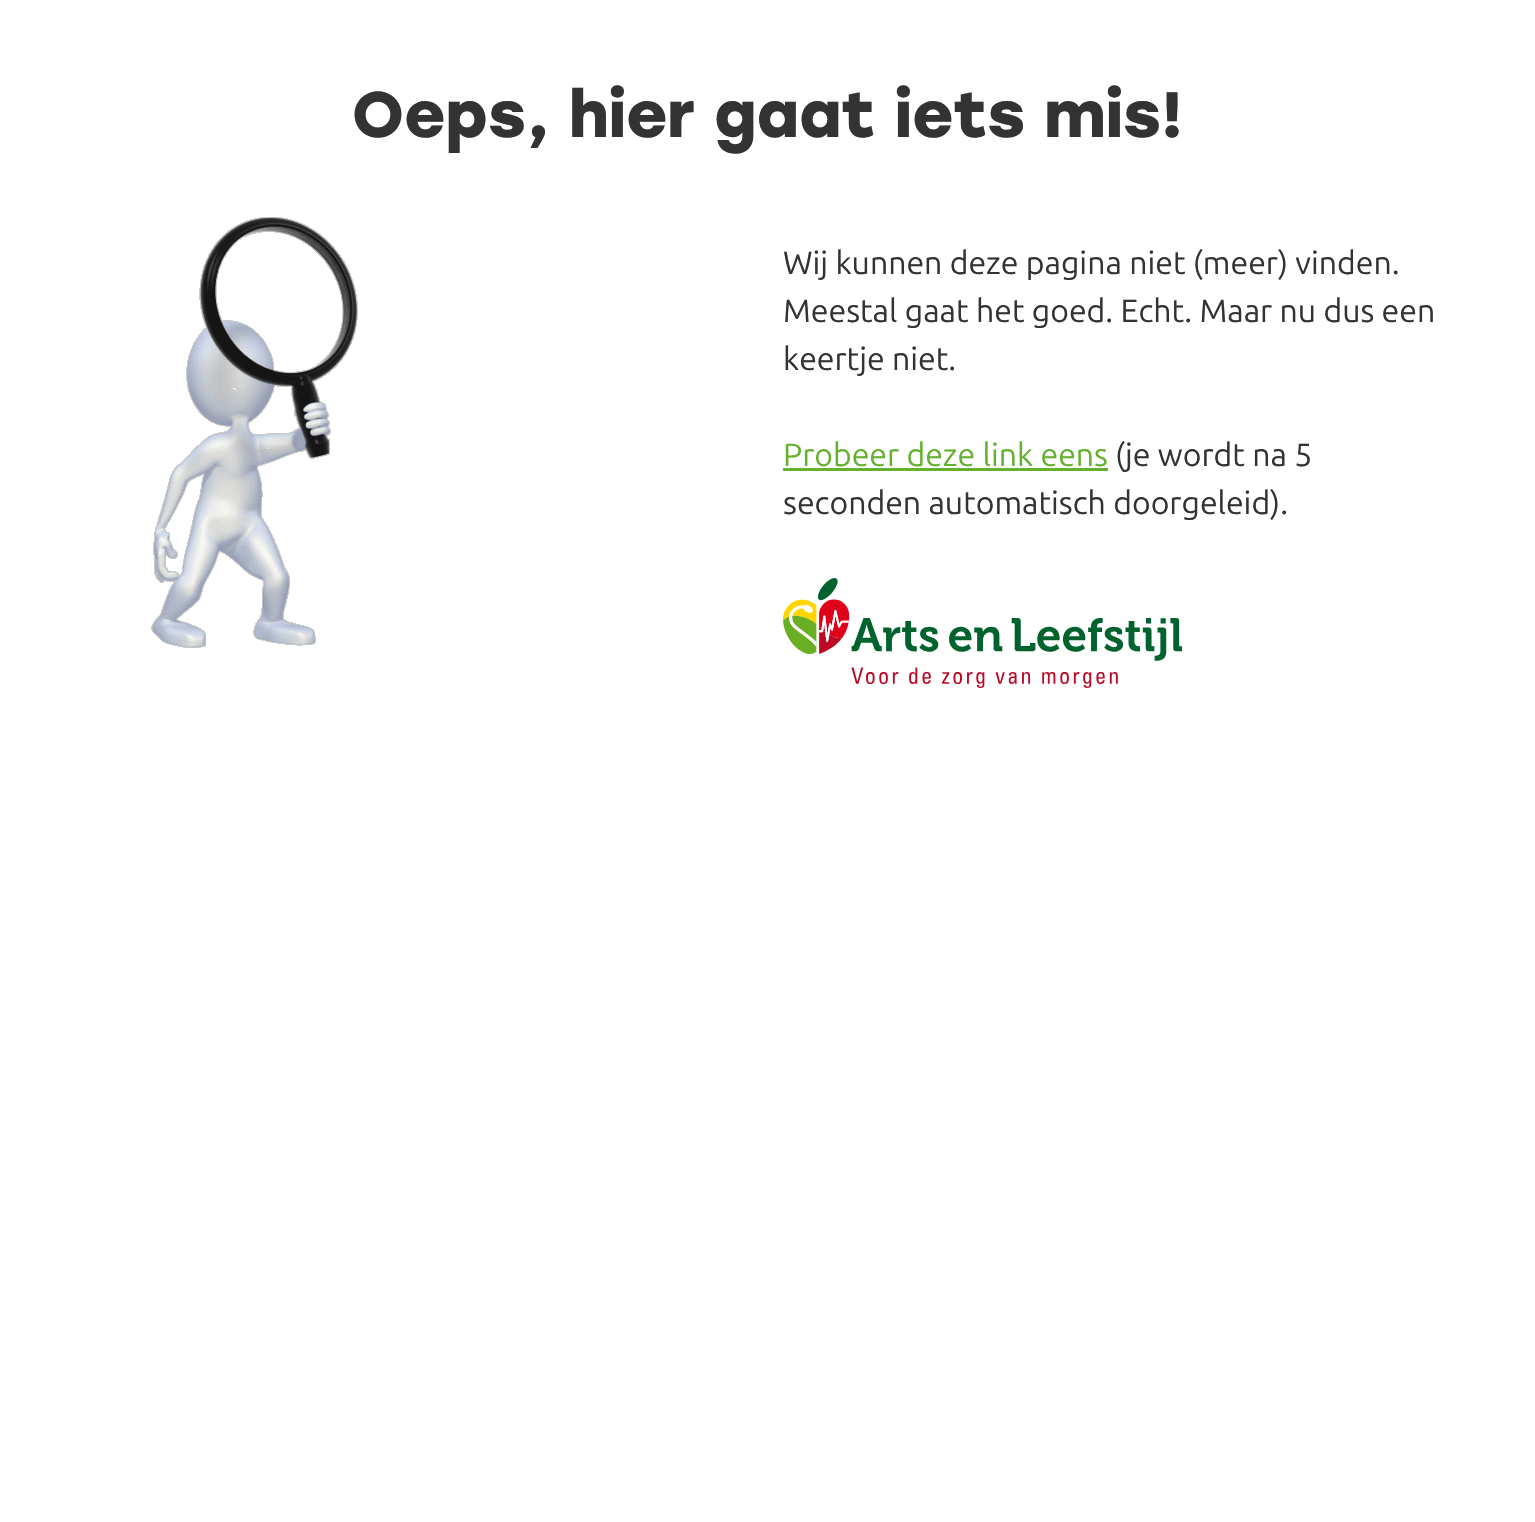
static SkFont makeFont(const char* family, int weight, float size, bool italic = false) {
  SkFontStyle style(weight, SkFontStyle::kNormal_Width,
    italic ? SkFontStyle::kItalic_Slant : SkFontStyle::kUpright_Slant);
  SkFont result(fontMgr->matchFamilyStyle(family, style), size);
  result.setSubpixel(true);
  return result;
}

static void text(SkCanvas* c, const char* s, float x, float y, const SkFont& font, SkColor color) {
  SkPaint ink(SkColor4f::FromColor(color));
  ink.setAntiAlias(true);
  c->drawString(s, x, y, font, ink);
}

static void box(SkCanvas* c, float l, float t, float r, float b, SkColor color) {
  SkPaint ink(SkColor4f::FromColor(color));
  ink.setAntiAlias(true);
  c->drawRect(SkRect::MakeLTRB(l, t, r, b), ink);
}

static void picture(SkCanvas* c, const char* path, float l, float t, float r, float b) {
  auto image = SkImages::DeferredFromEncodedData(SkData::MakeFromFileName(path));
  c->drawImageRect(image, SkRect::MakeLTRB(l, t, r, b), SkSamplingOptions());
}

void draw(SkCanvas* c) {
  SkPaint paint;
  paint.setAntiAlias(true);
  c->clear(0xffffffff);
  SkFont face1 = makeFont("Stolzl", 700, 64);
  text(c, "Oeps, hier gaat iets mis!", 352, 137, face1, 0xff333333);
  picture(c, "img_01.png", 151, 217, 358, 648);
  SkFont face2 = makeFont("Ubuntu", 400, 32);
  text(c, "Wij kunnen deze pagina niet (meer) vinden.", 783, 274, face2, 0xff333333);
  text(c, "Meestal gaat het goed. Echt. Maar nu dus een", 783, 322, face2, 0xff333333);
  text(c, "keertje niet.", 783, 370, face2, 0xff333333);
  text(c, "Probeer deze link eens", 783, 466, face2, 0xff66b02f);
  box(c, 783, 468, 1108, 471, 0xff66b02f);
  text(c, "(je wordt na 5", 1115, 466, face2, 0xff333333);
  text(c, "seconden automatisch doorgeleid).", 783, 514, face2, 0xff333333);
  picture(c, "img_02.png", 783, 578, 1182, 688);
}
